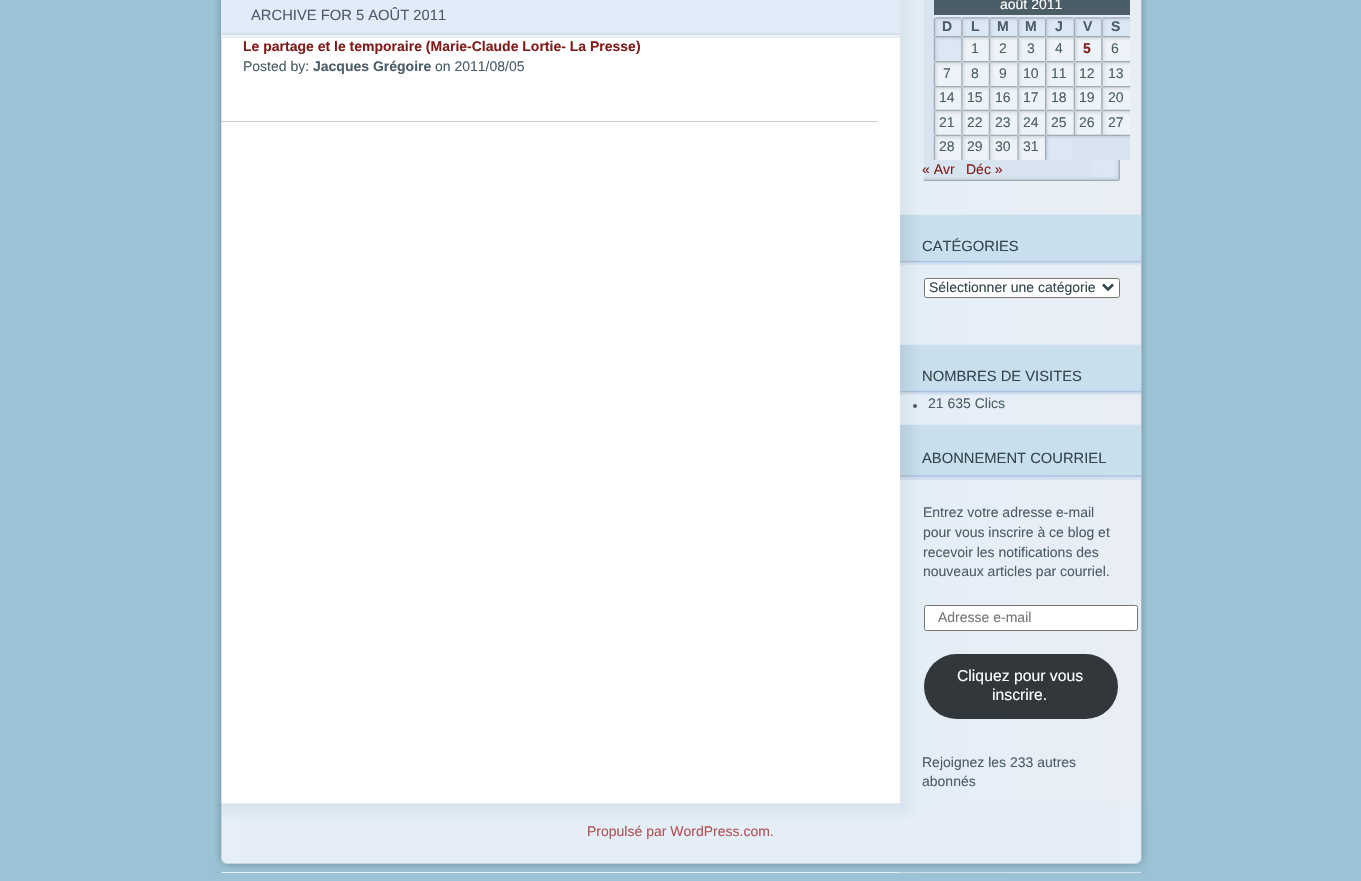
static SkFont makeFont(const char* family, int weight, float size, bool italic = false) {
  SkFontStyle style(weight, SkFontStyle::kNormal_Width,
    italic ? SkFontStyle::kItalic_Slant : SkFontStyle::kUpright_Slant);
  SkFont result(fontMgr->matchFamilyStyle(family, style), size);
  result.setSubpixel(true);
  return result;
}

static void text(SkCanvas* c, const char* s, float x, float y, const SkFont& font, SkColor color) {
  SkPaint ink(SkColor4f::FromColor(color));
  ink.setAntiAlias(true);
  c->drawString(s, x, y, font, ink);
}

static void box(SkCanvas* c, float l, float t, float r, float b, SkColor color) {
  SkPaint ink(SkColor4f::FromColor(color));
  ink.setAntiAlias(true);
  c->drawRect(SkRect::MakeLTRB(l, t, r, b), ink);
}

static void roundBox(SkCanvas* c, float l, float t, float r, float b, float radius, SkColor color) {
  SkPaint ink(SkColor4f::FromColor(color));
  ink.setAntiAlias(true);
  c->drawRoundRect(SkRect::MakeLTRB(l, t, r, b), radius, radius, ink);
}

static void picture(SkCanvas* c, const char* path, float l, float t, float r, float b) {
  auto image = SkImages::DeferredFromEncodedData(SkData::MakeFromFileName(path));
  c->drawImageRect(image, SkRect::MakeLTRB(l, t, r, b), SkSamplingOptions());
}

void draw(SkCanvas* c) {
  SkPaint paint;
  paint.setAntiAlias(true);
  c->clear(0xff9bc3d5);
  picture(c, "img_01.png", 215, 0, 1147, 873);
  box(c, 221, 0, 900, 38, 0xffe2ebf8);
  picture(c, "img_02.png", 221, 33, 900, 37);
  SkFont face1 = makeFont("Liberation Sans", 400, 14.75f);
  text(c, "ARCHIVE FOR 5 AOÛT 2011", 251, 20, face1, 0xff4b5d67);
  box(c, 221, 121, 878, 122, 0xffcccccc);
  SkFont face2 = makeFont("Liberation Sans", 700, 14);
  text(c, "Le partage et le temporaire (Marie-Claude Lortie- La Presse)", 243, 51, face2, 0xff7f1d1d);
  SkFont face3 = makeFont("Liberation Sans", 400, 14);
  text(c, "Posted by:", 243, 71, face3, 0xff4b5d67);
  text(c, "Jacques Grégoire", 313, 71, face2, 0xff4b5d67);
  text(c, "on 2011/08/05", 435, 71, face3, 0xff4b5d67);
  picture(c, "img_03.png", 923, 0, 1120, 181);
  box(c, 934, 0, 1130, 15, 0xff4b5d67);
  box(c, 934, 15, 1130, 18, 0xffe6eef7);
  text(c, "août 2011", 1000, 9, face3, 0xffffffff);
  picture(c, "img_04.png", 933, 17, 962, 36);
  text(c, "D", 942, 31, face2, 0xff4b5d67);
  picture(c, "img_05.png", 961, 17, 989, 36);
  text(c, "L", 971, 31, face2, 0xff4b5d67);
  picture(c, "img_06.png", 988, 17, 1018, 36);
  text(c, "M", 997, 31, face2, 0xff4b5d67);
  picture(c, "img_07.png", 1017, 17, 1045, 36);
  text(c, "M", 1025, 31, face2, 0xff4b5d67);
  picture(c, "img_08.png", 1045, 17, 1074, 36);
  text(c, "J", 1055, 31, face2, 0xff4b5d67);
  picture(c, "img_09.png", 1073, 17, 1102, 36);
  text(c, "V", 1083, 31, face2, 0xff4b5d67);
  picture(c, "img_10.png", 1101, 17, 1130, 36);
  text(c, "S", 1111, 31, face2, 0xff4b5d67);
  picture(c, "img_11.png", 933, 36, 962, 61);
  picture(c, "img_12.png", 961, 36, 989, 61);
  text(c, "1", 971, 53, face3, 0xff4b5d67);
  picture(c, "img_13.png", 988, 36, 1018, 61);
  text(c, "2", 999, 53, face3, 0xff4b5d67);
  picture(c, "img_14.png", 1017, 36, 1045, 61);
  text(c, "3", 1027, 53, face3, 0xff4b5d67);
  picture(c, "img_15.png", 1045, 36, 1074, 61);
  text(c, "4", 1055, 53, face3, 0xff4b5d67);
  picture(c, "img_16.png", 1073, 36, 1102, 61);
  text(c, "5", 1083, 53, face2, 0xff7f1d1d);
  picture(c, "img_17.png", 1101, 36, 1130, 61);
  text(c, "6", 1111, 53, face3, 0xff4b5d67);
  picture(c, "img_18.png", 933, 61, 962, 86);
  text(c, "7", 943, 78, face3, 0xff4b5d67);
  picture(c, "img_19.png", 961, 61, 989, 86);
  text(c, "8", 971, 78, face3, 0xff4b5d67);
  picture(c, "img_13.png", 988, 61, 1018, 86);
  text(c, "9", 999, 78, face3, 0xff4b5d67);
  picture(c, "img_14.png", 1017, 61, 1045, 86);
  text(c, "10", 1023, 78, face3, 0xff4b5d67);
  picture(c, "img_15.png", 1045, 61, 1074, 86);
  text(c, "11", 1051, 78, face3, 0xff4b5d67);
  picture(c, "img_16.png", 1073, 61, 1102, 86);
  text(c, "12", 1079, 78, face3, 0xff4b5d67);
  picture(c, "img_17.png", 1101, 61, 1130, 86);
  text(c, "13", 1108, 78, face3, 0xff4b5d67);
  picture(c, "img_20.png", 933, 86, 962, 110);
  text(c, "14", 939, 102, face3, 0xff4b5d67);
  picture(c, "img_21.png", 961, 86, 989, 110);
  text(c, "15", 967, 102, face3, 0xff4b5d67);
  picture(c, "img_22.png", 988, 86, 1018, 110);
  text(c, "16", 995, 102, face3, 0xff4b5d67);
  picture(c, "img_23.png", 1017, 86, 1045, 110);
  text(c, "17", 1023, 102, face3, 0xff4b5d67);
  picture(c, "img_24.png", 1045, 86, 1074, 110);
  text(c, "18", 1051, 102, face3, 0xff4b5d67);
  picture(c, "img_25.png", 1073, 86, 1102, 110);
  text(c, "19", 1079, 102, face3, 0xff4b5d67);
  picture(c, "img_26.png", 1101, 86, 1130, 110);
  text(c, "20", 1108, 102, face3, 0xff4b5d67);
  picture(c, "img_27.png", 933, 109, 962, 135);
  text(c, "21", 939, 127, face3, 0xff4b5d67);
  picture(c, "img_28.png", 961, 109, 989, 135);
  text(c, "22", 967, 127, face3, 0xff4b5d67);
  picture(c, "img_29.png", 988, 109, 1018, 135);
  text(c, "23", 995, 127, face3, 0xff4b5d67);
  picture(c, "img_30.png", 1017, 109, 1045, 135);
  text(c, "24", 1023, 127, face3, 0xff4b5d67);
  picture(c, "img_31.png", 1045, 109, 1074, 135);
  text(c, "25", 1051, 127, face3, 0xff4b5d67);
  picture(c, "img_32.png", 1073, 109, 1102, 135);
  text(c, "26", 1079, 127, face3, 0xff4b5d67);
  picture(c, "img_33.png", 1101, 109, 1130, 135);
  text(c, "27", 1108, 127, face3, 0xff4b5d67);
  picture(c, "img_27.png", 933, 134, 962, 160);
  text(c, "28", 939, 151, face3, 0xff4b5d67);
  picture(c, "img_28.png", 961, 134, 989, 160);
  text(c, "29", 967, 151, face3, 0xff4b5d67);
  picture(c, "img_29.png", 988, 134, 1018, 160);
  text(c, "30", 995, 151, face3, 0xff4b5d67);
  picture(c, "img_30.png", 1017, 134, 1045, 160);
  text(c, "31", 1023, 151, face3, 0xff4b5d67);
  picture(c, "img_34.png", 1045, 134, 1130, 160);
  text(c, "« Avr", 922, 174, face3, 0xff7f1d1d);
  text(c, "Déc »", 966, 174, face3, 0xff7f1d1d);
  picture(c, "img_35.png", 900, 214, 1142, 265);
  text(c, "CATÉGORIES", 922, 251, face1, 0xff32474b);
  paint.setColor(0xffffffff);
  c->drawRoundRect(SkRect::MakeLTRB(924.5f, 278.5f, 1119.5f, 297.5f), 2, 2, paint);
  paint.setStyle(SkPaint::kStroke_Style);
  paint.setStrokeWidth(1);
  paint.setColor(0xff767676);
  c->drawRoundRect(SkRect::MakeLTRB(924.5f, 278.5f, 1119.5f, 297.5f), 2, 2, paint);
  paint.setStrokeWidth(2.5f);
  paint.setColor(0xff32474b);
  c->drawPath(SkPathBuilder().moveTo(1103, 284.5f).lineTo(1108, 289.5f).lineTo(1113, 284.5f).detach(), paint);
  text(c, "Sélectionner une catégorie", 929, 292, face3, 0xff32474b);
  picture(c, "img_36.png", 900, 344, 1142, 395);
  text(c, "NOMBRES DE VISITES", 922, 381, face1, 0xff32474b);
  paint.setStyle(SkPaint::kFill_Style);
  paint.setColor(0xff4b5d67);
  c->drawCircle(915, 406, 2, paint);
  text(c, "21 635 Clics", 928, 408, face3, 0xff4b5d67);
  picture(c, "img_37.png", 900, 424, 1142, 480);
  text(c, "ABONNEMENT COURRIEL", 922, 463, face1, 0xff32474b);
  text(c, "Entrez votre adresse e-mail", 923, 517, face3, 0xff4b5d67);
  text(c, "pour vous inscrire à ce blog et", 923, 537, face3, 0xff4b5d67);
  text(c, "recevoir les notifications des", 923, 557, face3, 0xff4b5d67);
  text(c, "nouveaux articles par courriel.", 923, 576, face3, 0xff4b5d67);
  paint.setColor(0xffffffff);
  c->drawRoundRect(SkRect::MakeLTRB(924.5f, 605.5f, 1137.5f, 630.5f), 2, 2, paint);
  paint.setStyle(SkPaint::kStroke_Style);
  paint.setStrokeWidth(1);
  paint.setColor(0xff767676);
  c->drawRoundRect(SkRect::MakeLTRB(924.5f, 605.5f, 1137.5f, 630.5f), 2, 2, paint);
  text(c, "Adresse e-mail", 938, 622, face3, 0xff757575);
  roundBox(c, 924, 654, 1118, 719, 32.5f, 0xff32373c);
  SkFont face4 = makeFont("Liberation Sans", 400, 15.75f);
  text(c, "Cliquez pour vous", 957, 681, face4, 0xffffffff);
  text(c, "inscrire.", 992, 700, face4, 0xffffffff);
  text(c, "Rejoignez les 233 autres", 922, 767, face3, 0xff4b5d67);
  text(c, "abonnés", 922, 786, face3, 0xff4b5d67);
  picture(c, "img_38.png", 215, 803, 1148, 873);
  picture(c, "img_39.png", 221, 803, 916, 819);
  text(c, "Propulsé par WordPress.com.", 587, 836, face3, 0xffb05255);
}
